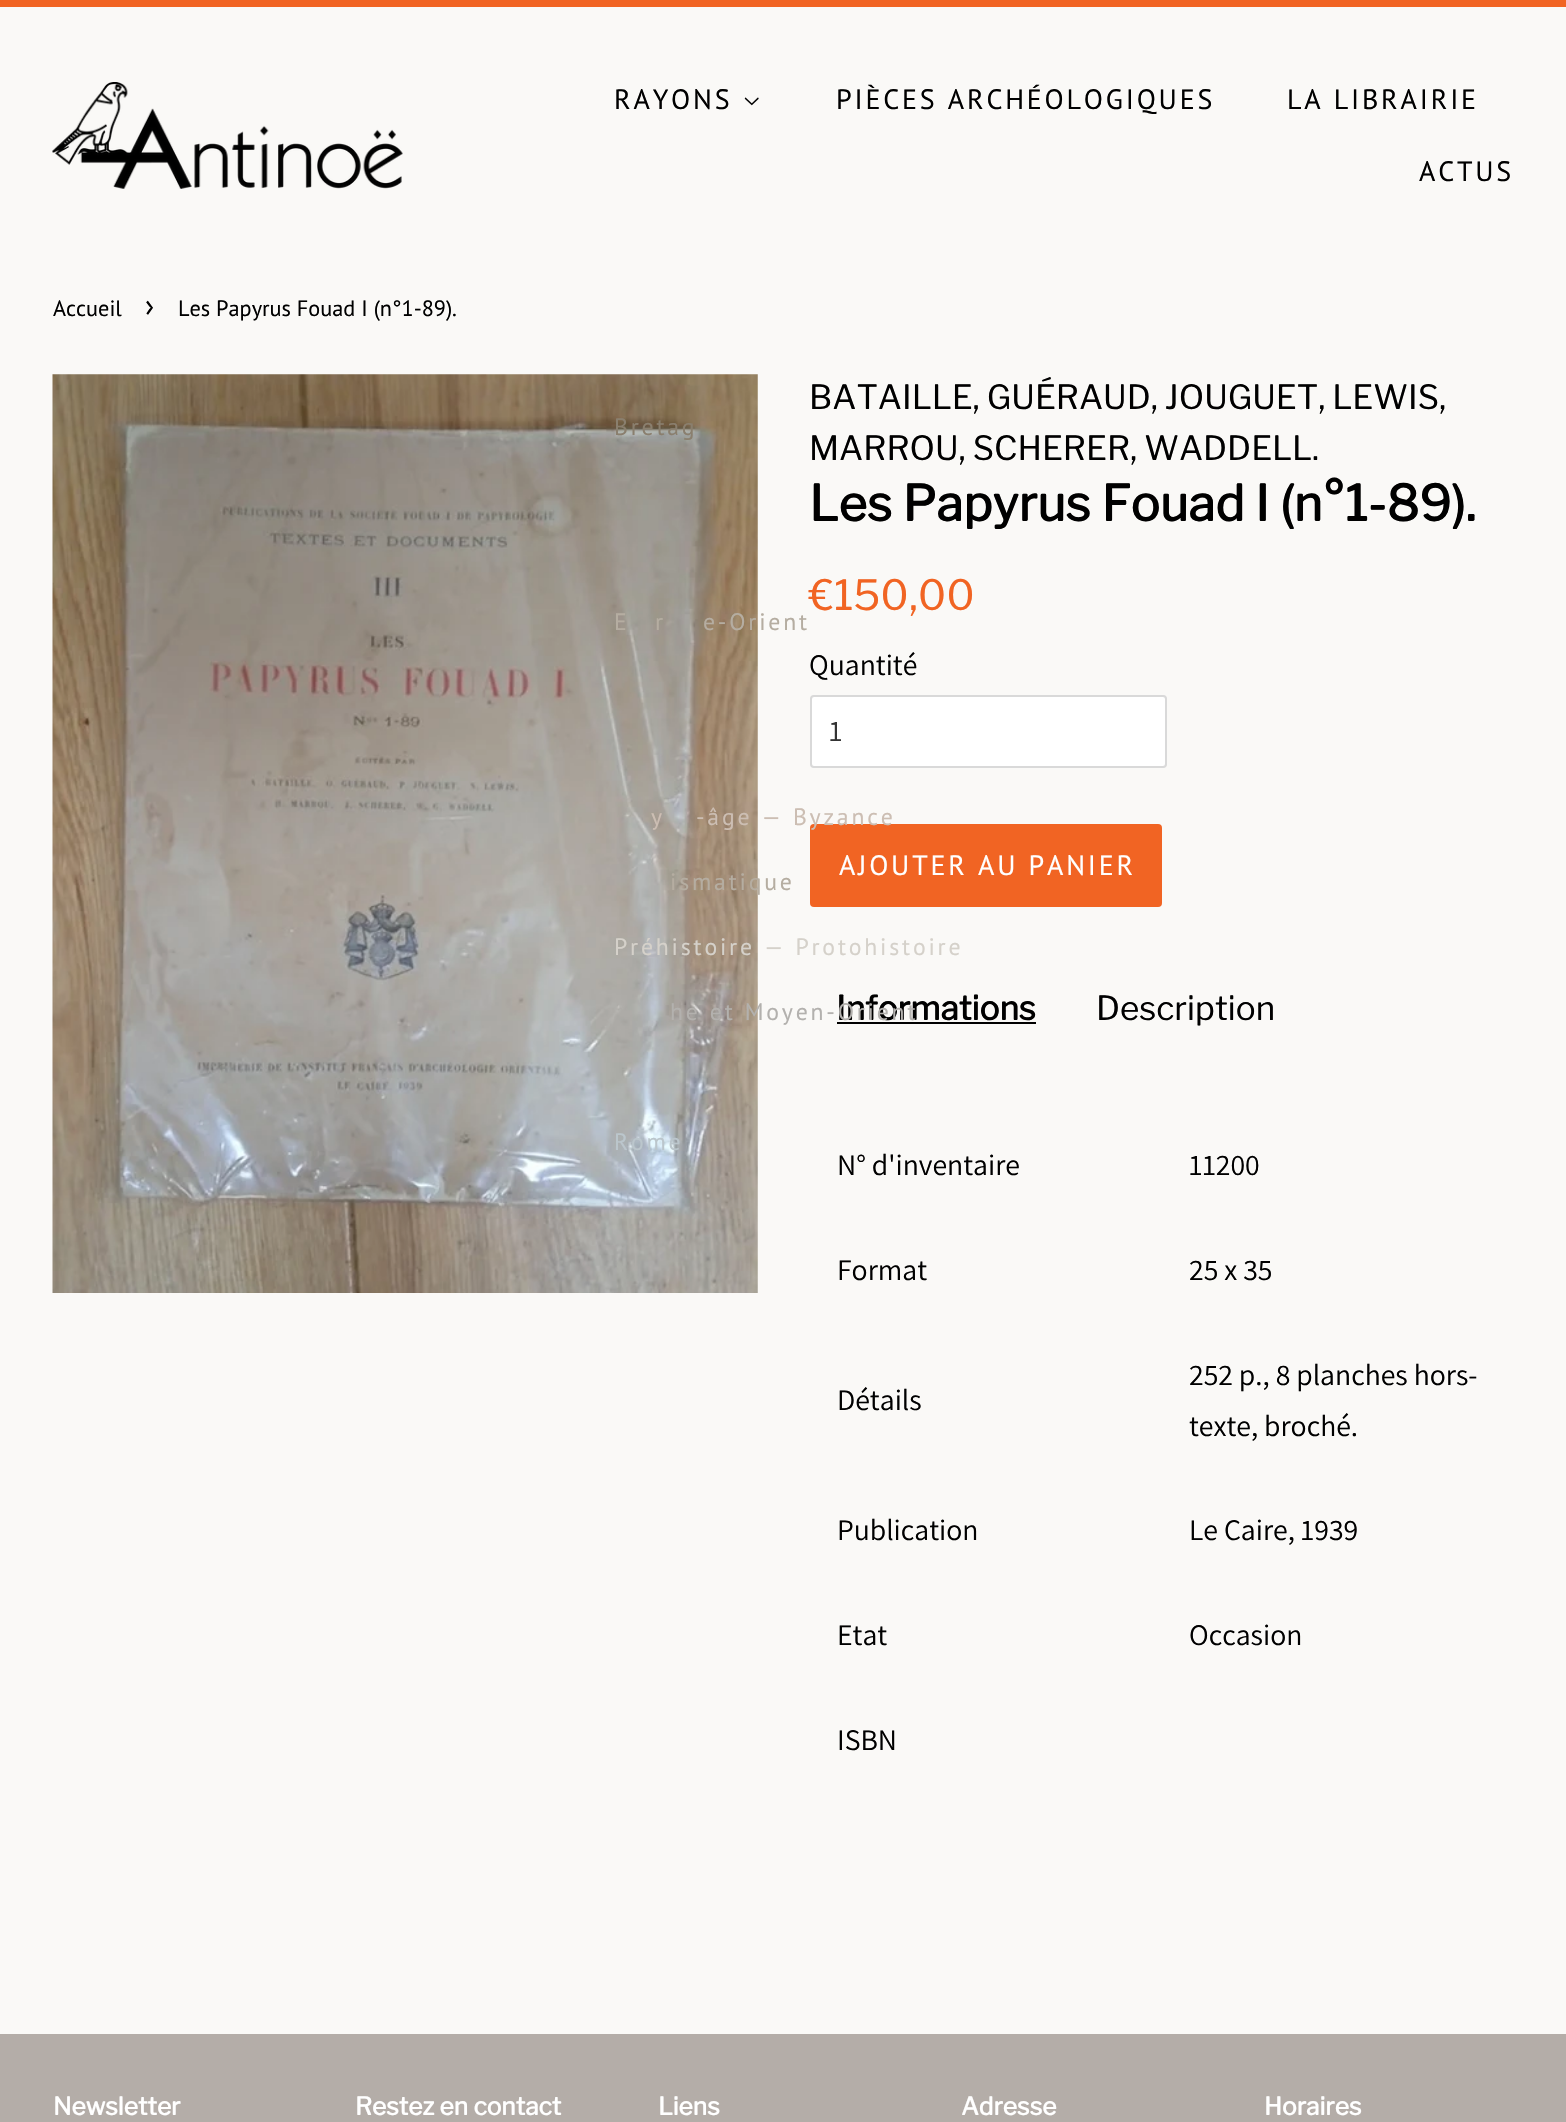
static SkFont makeFont(const char* family, int weight, float size, bool italic = false) {
  SkFontStyle style(weight, SkFontStyle::kNormal_Width,
    italic ? SkFontStyle::kItalic_Slant : SkFontStyle::kUpright_Slant);
  SkFont result(fontMgr->matchFamilyStyle(family, style), size);
  result.setSubpixel(true);
  return result;
}

static void text(SkCanvas* c, const char* s, float x, float y, const SkFont& font, SkColor color) {
  SkPaint ink(SkColor4f::FromColor(color));
  ink.setAntiAlias(true);
  c->drawString(s, x, y, font, ink);
}

static void spacedText(SkCanvas* c, const char* s, float x, float y, const SkFont& font, const SkPaint& ink, float letter, float word) {
  std::vector<SkGlyphID> glyphs(font.countText(s, strlen(s), SkTextEncoding::kUTF8));
  std::vector<float> xs(glyphs.size());
  font.textToGlyphs(s, strlen(s), SkTextEncoding::kUTF8, glyphs);
  font.getXPos(glyphs, xs, x);
  float extra = 0;
  for (size_t i = 0; i < glyphs.size(); i++) {
    xs[i] += extra;
    extra += letter + word * (glyphs[i] == font.unicharToGlyph(' '));
  }
  c->drawTextBlob(SkTextBlob::MakeFromPosHGlyphs(glyphs, xs, y, font), 0, 0, ink);
}

static void box(SkCanvas* c, float l, float t, float r, float b, SkColor color) {
  SkPaint ink(SkColor4f::FromColor(color));
  ink.setAntiAlias(true);
  c->drawRect(SkRect::MakeLTRB(l, t, r, b), ink);
}

static void roundBox(SkCanvas* c, float l, float t, float r, float b, float radius, SkColor color) {
  SkPaint ink(SkColor4f::FromColor(color));
  ink.setAntiAlias(true);
  c->drawRoundRect(SkRect::MakeLTRB(l, t, r, b), radius, radius, ink);
}

static void picture(SkCanvas* c, const char* path, float l, float t, float r, float b) {
  auto image = SkImages::DeferredFromEncodedData(SkData::MakeFromFileName(path));
  c->drawImageRect(image, SkRect::MakeLTRB(l, t, r, b), SkSamplingOptions());
}

void draw(SkCanvas* c) {
  SkPaint paint;
  paint.setAntiAlias(true);
  c->clear(0xfffaf9f7);
  box(c, 0, 0, 1566, 7, 0xfff16423);
  picture(c, "img_01.png", 52, 82, 403, 189);
  SkFont face1 = makeFont("PT Sans", 400, 28);
  paint.setColor(0xff000000);
  spacedText(c, "RAYONS", 614, 109, face1, paint, 2.8f, 0);
  picture(c, "img_02.png", 744, 97, 759, 106);
  picture(c, "img_03.png", 52, 374, 758, 1293);
  SkFont face2 = makeFont("PT Sans", 400, 23.75f);
  paint.setColor(0xff8a7f6e);
  spacedText(c, "Bretag", 614, 435, face2, paint, 2.8f, 0);
  paint.setColor(0xffb5ada1);
  spacedText(c, "E", 614, 630, face2, paint, 2.8f, 0);
  spacedText(c, "r", 655, 630, face2, paint, 2.8f, 0);
  spacedText(c, "e-Orient", 703, 630, face2, paint, 2.8f, 0);
  paint.setColor(0xffccbeb3);
  spacedText(c, "y", 651, 825, face2, paint, 2.8f, 0);
  roundBox(c, 810, 824, 1162, 907, 4, 0xfff16423);
  spacedText(c, "-âge — Byzance", 696, 825, face2, paint, 2.8f, 0);
  paint.setColor(0xffb5ada1);
  spacedText(c, "ismatique", 670, 890, face2, paint, 2.8f, 0);
  paint.setColor(0xffd5d1ca);
  spacedText(c, "Préhistoire — Protohistoire", 614, 955, face2, paint, 2.8f, 0);
  SkFont face3 = makeFont("Libre Franklin", 700, 33.25f);
  text(c, "Informations", 836, 1020, face3, 0xff000000);
  box(c, 837, 1022, 1036, 1024, 0xff000000);
  paint.setColor(0xffb3b1ae);
  spacedText(c, "he et Moyen-Orient", 670, 1020, face2, paint, 2.8f, 0);
  paint.setColor(0xffbbc6cc);
  spacedText(c, "Rome", 614, 1150, face2, paint, 2.8f, 0);
  paint.setColor(0xff000000);
  spacedText(c, "PIÈCES ARCHÉOLOGIQUES", 836, 109, face1, paint, 2.8f, 0);
  spacedText(c, "LA LIBRAIRIE", 1287, 109, face1, paint, 2.8f, 0);
  spacedText(c, "ACTUS", 1419, 181, face1, paint, 2.8f, 0);
  SkFont face4 = makeFont("PT Sans", 400, 22.25f);
  text(c, "Accueil", 53, 316, face4, 0xff000000);
  SkFont face5 = makeFont("PT Sans", 400, 31);
  text(c, "›", 145, 316, face5, 0xff000000);
  text(c, "Les Papyrus Fouad I (n°1-89).", 178, 316, face4, 0xff000000);
  SkFont face6 = makeFont("Libre Franklin", 400, 33.25f);
  text(c, "BATAILLE, GUÉRAUD, JOUGUET, LEWIS,", 809, 409, face6, 0xff000000);
  text(c, "MARROU, SCHERER, WADDELL.", 809, 460, face6, 0xff000000);
  SkFont face7 = makeFont("Libre Franklin", 700, 49);
  text(c, "Les Papyrus Fouad I (n°1-89).", 809, 521, face7, 0xff000000);
  SkFont face8 = makeFont("Libre Franklin", 400, 41.5f);
  text(c, "€150,00", 809, 610, face8, 0xfff16423);
  SkFont face9 = makeFont("Assistant", 400, 29.75f);
  text(c, "Quantité", 809, 675, face9, 0xff000000);
  roundBox(c, 810, 695, 1167, 768, 4, 0xffffffff);
  paint.setStyle(SkPaint::kStroke_Style);
  paint.setStrokeWidth(2);
  paint.setColor(0x26000000);
  c->drawRoundRect(SkRect::MakeLTRB(811, 696, 1166, 767), 3, 3, paint);
  text(c, "1", 829, 741, face9, 0xff333333);
  paint.setStyle(SkPaint::kFill_Style);
  paint.setColor(0xffffffff);
  spacedText(c, "AJOUTER AU PANIER", 839, 875, face1, paint, 2.8f, 0);
  text(c, "Description", 1096, 1020, face6, 0xff000000);
  text(c, "N° d'inventaire", 837, 1175, face9, 0xff000000);
  text(c, "11200", 1189, 1175, face9, 0xff000000);
  text(c, "Format", 837, 1280, face9, 0xff000000);
  text(c, "25 x 35", 1189, 1280, face9, 0xff000000);
  text(c, "Détails", 837, 1410, face9, 0xff000000);
  text(c, "252 p., 8 planches hors-", 1189, 1385, face9, 0xff000000);
  text(c, "texte, broché.", 1189, 1436, face9, 0xff000000);
  text(c, "Publication", 837, 1540, face9, 0xff000000);
  text(c, "Le Caire, 1939", 1189, 1540, face9, 0xff000000);
  text(c, "Etat", 837, 1645, face9, 0xff000000);
  text(c, "Occasion", 1189, 1645, face9, 0xff000000);
  text(c, "ISBN", 837, 1750, face9, 0xff000000);
  box(c, 0, 2034, 1566, 2122, 0xffb4ada8);
  SkFont face10 = makeFont("Libre Franklin", 700, 24.5f);
  text(c, "Newsletter", 53, 2115, face10, 0xffffffff);
  text(c, "Restez en contact", 355, 2115, face10, 0xffffffff);
  text(c, "Liens", 658, 2115, face10, 0xffffffff);
  text(c, "Adresse", 961, 2115, face10, 0xffffffff);
  text(c, "Horaires", 1264, 2115, face10, 0xffffffff);
}
